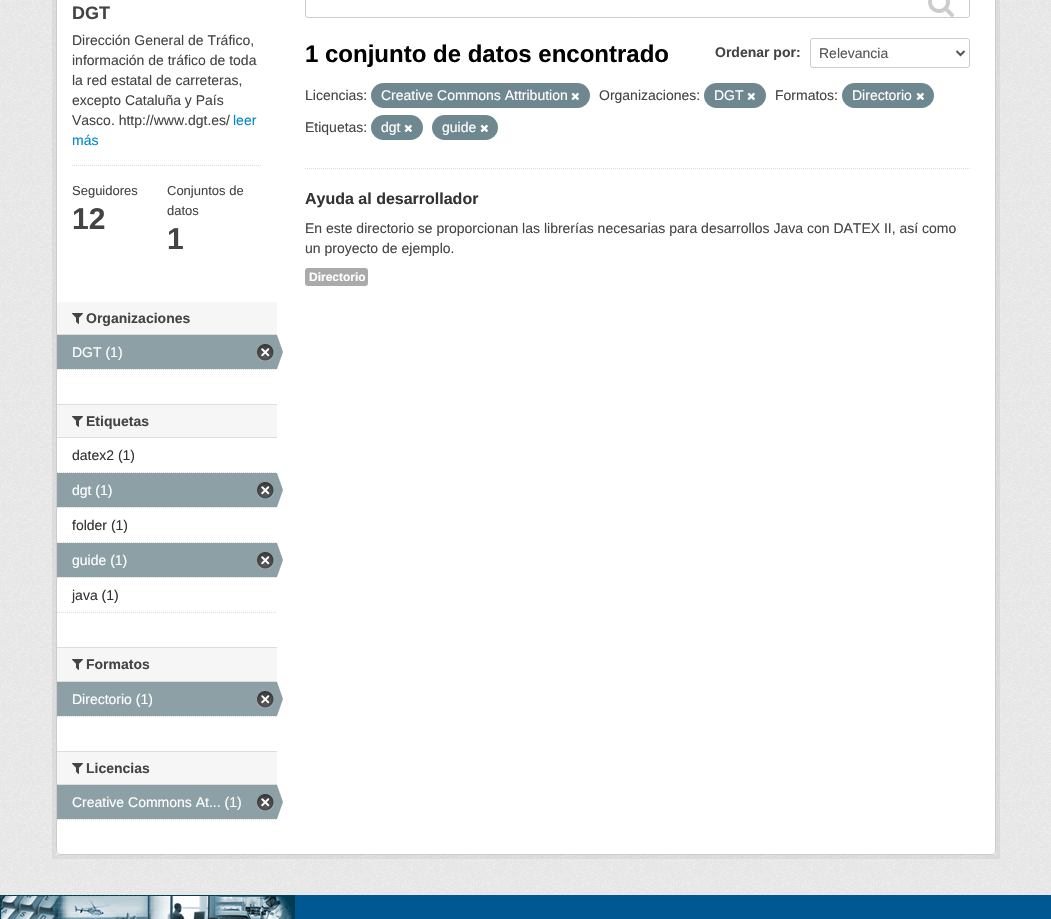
static SkFont makeFont(const char* family, int weight, float size, bool italic = false) {
  SkFontStyle style(weight, SkFontStyle::kNormal_Width,
    italic ? SkFontStyle::kItalic_Slant : SkFontStyle::kUpright_Slant);
  SkFont result(fontMgr->matchFamilyStyle(family, style), size);
  result.setSubpixel(true);
  return result;
}

static void text(SkCanvas* c, const char* s, float x, float y, const SkFont& font, SkColor color) {
  SkPaint ink(SkColor4f::FromColor(color));
  ink.setAntiAlias(true);
  c->drawString(s, x, y, font, ink);
}

static void box(SkCanvas* c, float l, float t, float r, float b, SkColor color) {
  SkPaint ink(SkColor4f::FromColor(color));
  ink.setAntiAlias(true);
  c->drawRect(SkRect::MakeLTRB(l, t, r, b), ink);
}

static void roundBox(SkCanvas* c, float l, float t, float r, float b, float radius, SkColor color) {
  SkPaint ink(SkColor4f::FromColor(color));
  ink.setAntiAlias(true);
  c->drawRoundRect(SkRect::MakeLTRB(l, t, r, b), radius, radius, ink);
}

static void picture(SkCanvas* c, const char* path, float l, float t, float r, float b) {
  auto image = SkImages::DeferredFromEncodedData(SkData::MakeFromFileName(path));
  c->drawImageRect(image, SkRect::MakeLTRB(l, t, r, b), SkSamplingOptions());
}

void draw(SkCanvas* c) {
  SkPaint paint;
  paint.setAntiAlias(true);
  c->clear(0xff005892);
  box(c, 0, 0, 1051, 895, 0xffeeeeee);
  picture(c, "img_01.png", 0, 0, 1051, 895);
  paint.setStyle(SkPaint::kStroke_Style);
  paint.setStrokeWidth(4);
  paint.setColor(0x0d000000);
  c->drawRect(SkRect::MakeLTRB(54, -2, 998, 857), paint);
  roundBox(c, 56, -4, 996, 855, 4, 0xffffffff);
  box(c, 57, 854, 59, 855, 0xffffffff);
  paint.setStrokeWidth(1);
  paint.setColor(0xffcccccc);
  c->drawRoundRect(SkRect::MakeLTRB(56.5f, -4.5f, 995.5f, 854.5f), 3.5f, 3.5f, paint);
  SkFont face1 = makeFont("Liberation Sans", 700, 18);
  text(c, "DGT", 72, 19, face1, 0xff444444);
  SkFont face2 = makeFont("Liberation Sans", 400, 14);
  text(c, "Dirección General de Tráfico,", 72, 45, face2, 0xff444444);
  text(c, "información de tráfico de toda", 72, 65, face2, 0xff444444);
  text(c, "la red estatal de carreteras,", 72, 85, face2, 0xff444444);
  text(c, "excepto Cataluña y País", 72, 105, face2, 0xff444444);
  text(c, "Vasco. http://www.dgt.es/", 72, 125, face2, 0xff444444);
  text(c, "leer", 233, 125, face2, 0xff0087d0);
  text(c, "más", 72, 145, face2, 0xff0087d0);
  paint.setColor(0xffdddddd);
  paint.setPathEffect(SkDashPathEffect::Make({{1, 1}}, 0));
  c->drawPath(SkPathBuilder().moveTo(72, 165.5f).lineTo(262, 165.5f).detach(), paint);
  paint.setPathEffect(nullptr);
  SkFont face3 = makeFont("Liberation Sans", 400, 13);
  text(c, "Seguidores", 72, 195, face3, 0xff444444);
  SkFont face4 = makeFont("Liberation Sans", 700, 30);
  text(c, "12", 72, 229, face4, 0xff444444);
  text(c, "Conjuntos de", 167, 195, face3, 0xff444444);
  text(c, "datos", 167, 215, face3, 0xff444444);
  text(c, "1", 167, 249, face4, 0xff444444);
  paint.setStyle(SkPaint::kFill_Style);
  paint.setColor(0xfff6f6f6);
  c->drawPath(SkPathBuilder().moveTo(60, 302).lineTo(277, 302).lineTo(277, 335).lineTo(57, 335).lineTo(57, 305).cubicTo(57, 303.5f, 58.5f, 302, 60, 302).close().detach(), paint);
  box(c, 57, 334, 277, 335, 0xffdddddd);
  picture(c, "img_02.png", 72, 313, 83, 324);
  SkFont face5 = makeFont("Liberation Sans", 700, 14);
  text(c, "Organizaciones", 86, 323, face5, 0xff444444);
  box(c, 57, 335, 277, 369, 0xff8ca0a6);
  text(c, "DGT (1)", 72, 357, face2, 0xffffffff);
  picture(c, "img_03.png", 257, 344, 274, 361);
  picture(c, "img_04.png", 277, 335, 283, 369);
  paint.setStyle(SkPaint::kStroke_Style);
  paint.setColor(0xffdddddd);
  paint.setPathEffect(SkDashPathEffect::Make({{1, 1}}, 0));
  c->drawPath(SkPathBuilder().moveTo(57, 369.5f).lineTo(277, 369.5f).detach(), paint);
  paint.setPathEffect(nullptr);
  box(c, 57, 405, 277, 437, 0xfff6f6f6);
  box(c, 57, 404, 277, 405, 0xffdddddd);
  box(c, 57, 437, 277, 438, 0xffdddddd);
  picture(c, "img_02.png", 72, 416, 83, 427);
  text(c, "Etiquetas", 86, 426, face5, 0xff444444);
  paint.setPathEffect(SkDashPathEffect::Make({{1, 1}}, 0));
  c->drawPath(SkPathBuilder().moveTo(57, 472.5f).lineTo(277, 472.5f).detach(), paint);
  paint.setPathEffect(nullptr);
  text(c, "datex2 (1)", 72, 460, face2, 0xff333333);
  box(c, 58, 507, 277, 508, 0xfff6f6f6);
  paint.setPathEffect(SkDashPathEffect::Make({{1, 1}}, 0));
  c->drawPath(SkPathBuilder().moveTo(57, 507.5f).lineTo(277, 507.5f).detach(), paint);
  paint.setPathEffect(nullptr);
  box(c, 57, 473, 277, 507, 0xff8ca0a6);
  text(c, "dgt (1)", 72, 495, face2, 0xffffffff);
  picture(c, "img_03.png", 257, 482, 274, 499);
  picture(c, "img_04.png", 277, 473, 283, 507);
  paint.setPathEffect(SkDashPathEffect::Make({{1, 1}}, 0));
  c->drawPath(SkPathBuilder().moveTo(57, 542.5f).lineTo(277, 542.5f).detach(), paint);
  paint.setPathEffect(nullptr);
  text(c, "folder (1)", 72, 530, face2, 0xff333333);
  box(c, 58, 577, 277, 578, 0xfff6f6f6);
  paint.setPathEffect(SkDashPathEffect::Make({{1, 1}}, 0));
  c->drawPath(SkPathBuilder().moveTo(57, 577.5f).lineTo(277, 577.5f).detach(), paint);
  paint.setPathEffect(nullptr);
  box(c, 57, 543, 277, 577, 0xff8ca0a6);
  text(c, "guide (1)", 72, 565, face2, 0xffffffff);
  picture(c, "img_03.png", 257, 552, 274, 569);
  picture(c, "img_04.png", 277, 543, 283, 577);
  text(c, "java (1)", 72, 600, face2, 0xff333333);
  paint.setPathEffect(SkDashPathEffect::Make({{1, 1}}, 0));
  c->drawPath(SkPathBuilder().moveTo(57, 612.5f).lineTo(277, 612.5f).detach(), paint);
  paint.setPathEffect(nullptr);
  box(c, 57, 648, 277, 681, 0xfff6f6f6);
  box(c, 57, 647, 277, 648, 0xffdddddd);
  box(c, 57, 681, 277, 682, 0xffdddddd);
  picture(c, "img_02.png", 72, 659, 83, 670);
  text(c, "Formatos", 86, 669, face5, 0xff444444);
  box(c, 57, 682, 277, 716, 0xff8ca0a6);
  text(c, "Directorio (1)", 72, 704, face2, 0xffffffff);
  picture(c, "img_03.png", 257, 691, 274, 708);
  picture(c, "img_04.png", 277, 682, 283, 716);
  paint.setPathEffect(SkDashPathEffect::Make({{1, 1}}, 0));
  c->drawPath(SkPathBuilder().moveTo(57, 716.5f).lineTo(277, 716.5f).detach(), paint);
  paint.setPathEffect(nullptr);
  box(c, 57, 752, 277, 784, 0xfff6f6f6);
  box(c, 57, 751, 277, 752, 0xffdddddd);
  box(c, 57, 784, 277, 785, 0xffdddddd);
  picture(c, "img_02.png", 72, 763, 83, 774);
  text(c, "Licencias", 86, 773, face5, 0xff444444);
  box(c, 57, 785, 277, 819, 0xff8ca0a6);
  text(c, "Creative Commons At... (1)", 72, 807, face2, 0xffffffff);
  picture(c, "img_03.png", 257, 794, 274, 811);
  picture(c, "img_04.png", 277, 785, 283, 819);
  paint.setPathEffect(SkDashPathEffect::Make({{1, 1}}, 0));
  c->drawPath(SkPathBuilder().moveTo(57, 819.5f).lineTo(277, 819.5f).detach(), paint);
  paint.setPathEffect(nullptr);
  paint.setPathEffect(SkDashPathEffect::Make({{1, 1}}, 0));
  c->drawPath(SkPathBuilder().moveTo(305, 168.5f).lineTo(970, 168.5f).detach(), paint);
  paint.setPathEffect(nullptr);
  paint.setColor(0xffcccccc);
  c->drawRoundRect(SkRect::MakeLTRB(305.5f, -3.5f, 969.5f, 17.5f), 2.5f, 2.5f, paint);
  picture(c, "img_05.png", 928, 0, 954, 17);
  SkFont face6 = makeFont("Liberation Sans", 700, 24);
  text(c, "1 conjunto de datos encontrado", 305, 62, face6, 0xff000000);
  text(c, "Ordenar por:", 715, 57, face5, 0xff444444);
  c->drawRoundRect(SkRect::MakeLTRB(810.5f, 38.5f, 969.5f, 67.5f), 2.5f, 2.5f, paint);
  paint.setStrokeWidth(2);
  paint.setColor(0xff555555);
  c->drawPath(SkPathBuilder().moveTo(956.5f, 51).lineTo(960.5f, 55).lineTo(964.5f, 51).detach(), paint);
  text(c, "Relevancia", 819, 58, face2, 0xff555555);
  text(c, "Licencias:", 305, 100, face2, 0xff444444);
  roundBox(c, 371, 83, 590, 108, 12.5f, 0xff6f8890);
  text(c, "Creative Commons Attribution", 381, 100, face2, 0xffffffff);
  picture(c, "img_06.png", 571, 92, 579, 100);
  text(c, "Organizaciones:", 599, 100, face2, 0xff444444);
  roundBox(c, 704, 83, 766, 108, 12.5f, 0xff6f8890);
  text(c, "DGT", 714, 100, face2, 0xffffffff);
  picture(c, "img_06.png", 747, 92, 755, 100);
  text(c, "Formatos:", 775, 100, face2, 0xff444444);
  roundBox(c, 842, 83, 934, 108, 12.5f, 0xff6f8890);
  text(c, "Directorio", 852, 100, face2, 0xffffffff);
  picture(c, "img_06.png", 916, 92, 924, 100);
  text(c, "Etiquetas:", 305, 132, face2, 0xff444444);
  roundBox(c, 371, 115, 423, 140, 12.5f, 0xff6f8890);
  text(c, "dgt", 381, 132, face2, 0xffffffff);
  picture(c, "img_06.png", 404, 124, 412, 132);
  roundBox(c, 432, 115, 498, 140, 12.5f, 0xff6f8890);
  text(c, "guide", 442, 132, face2, 0xffffffff);
  picture(c, "img_06.png", 480, 124, 488, 132);
  SkFont face7 = makeFont("Liberation Sans", 700, 16);
  text(c, "Ayuda al desarrollador", 305, 204, face7, 0xff333333);
  text(c, "En este directorio se proporcionan las librerías necesarias para desarrollos Java con DATEX II, así como", 305, 233, face2, 0xff444444);
  text(c, "un proyecto de ejemplo.", 305, 253, face2, 0xff444444);
  roundBox(c, 305, 268, 368, 286, 3, 0xffaaaaaa);
  SkFont face8 = makeFont("Liberation Sans", 700, 12);
  text(c, "Directorio", 309, 281, face8, 0xffffffff);
  picture(c, "img_07.png", 0, 895, 295, 919);
}
